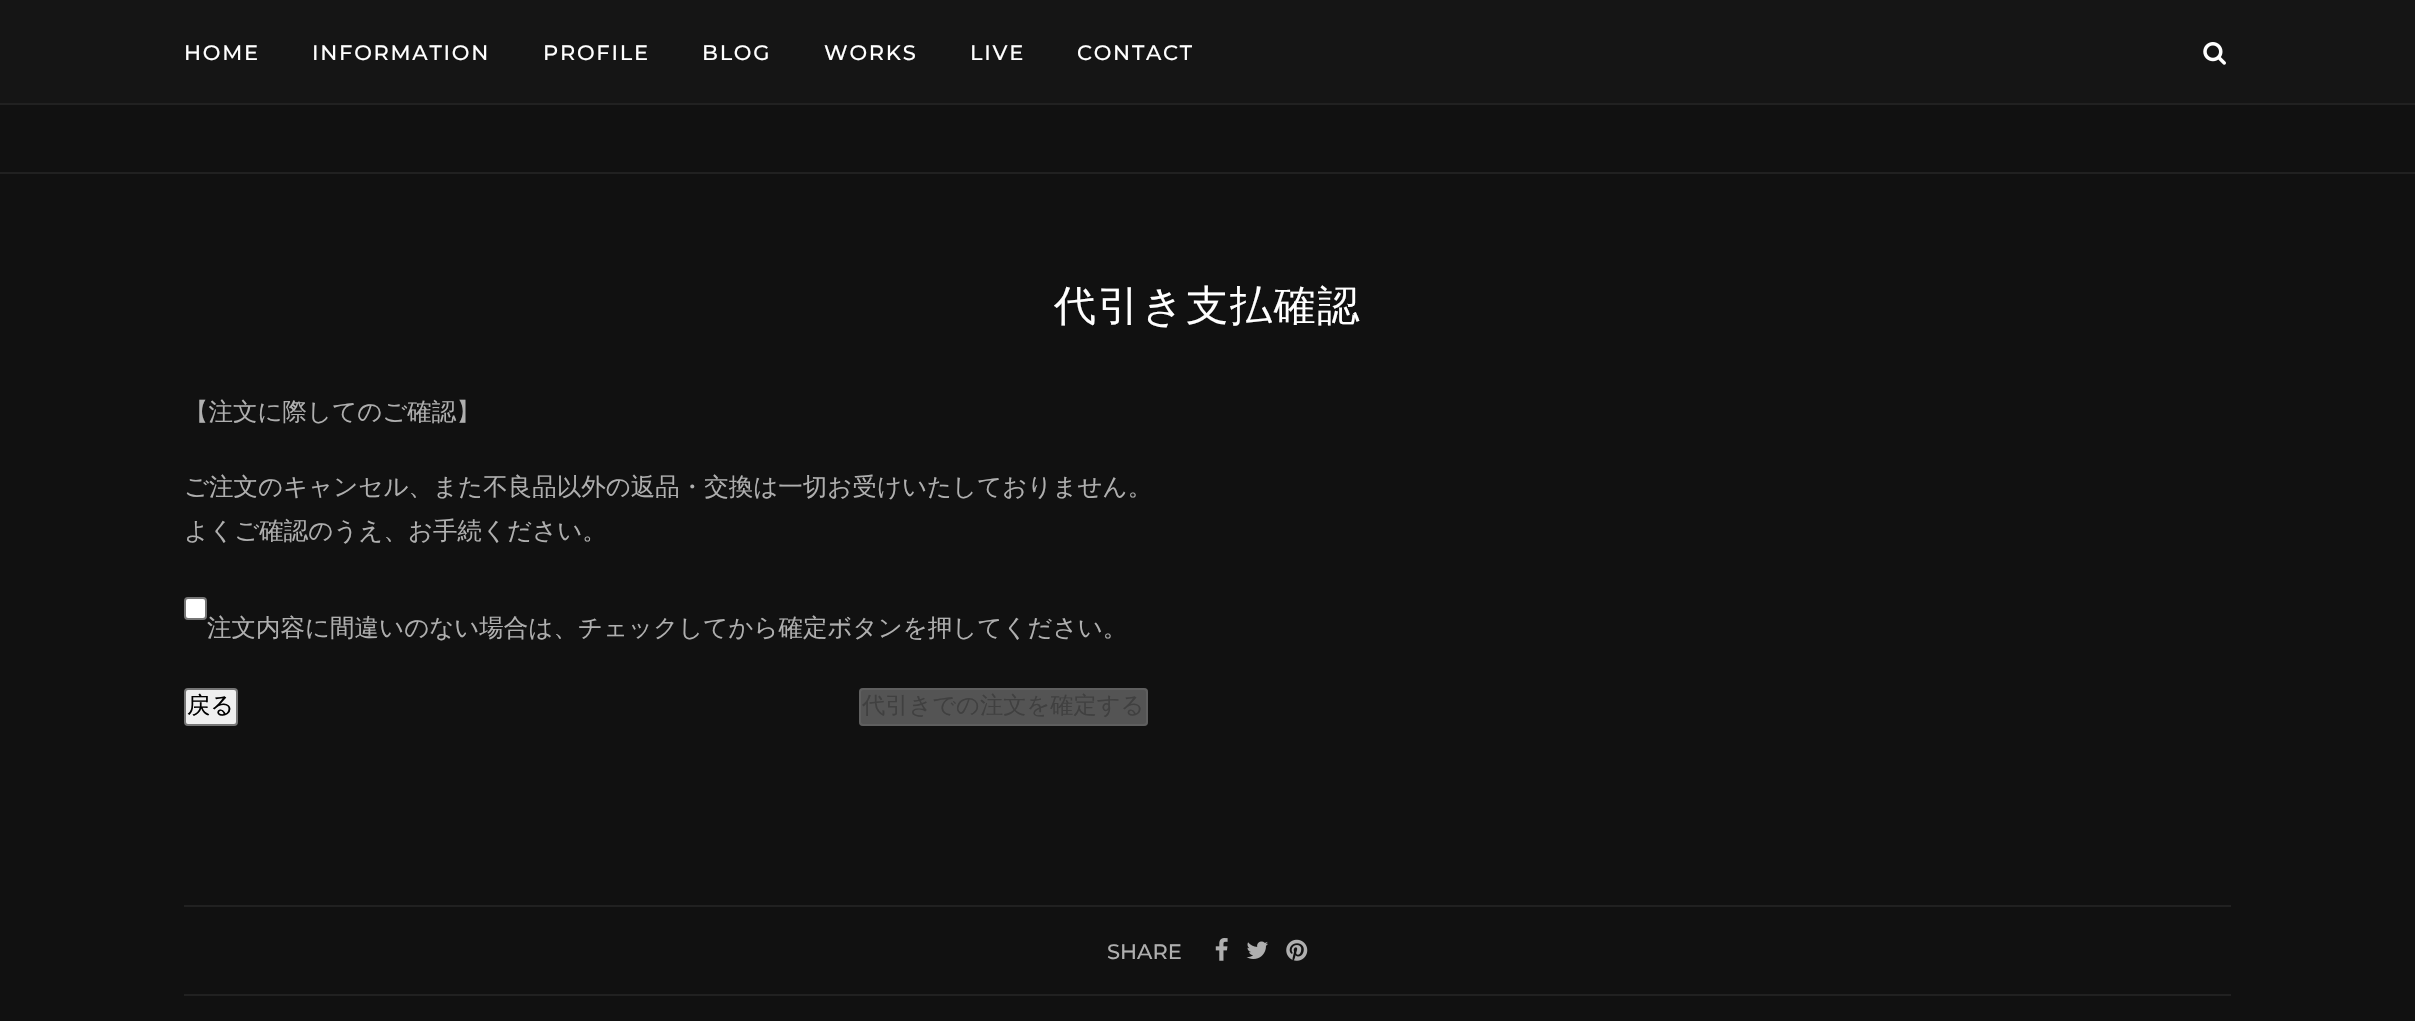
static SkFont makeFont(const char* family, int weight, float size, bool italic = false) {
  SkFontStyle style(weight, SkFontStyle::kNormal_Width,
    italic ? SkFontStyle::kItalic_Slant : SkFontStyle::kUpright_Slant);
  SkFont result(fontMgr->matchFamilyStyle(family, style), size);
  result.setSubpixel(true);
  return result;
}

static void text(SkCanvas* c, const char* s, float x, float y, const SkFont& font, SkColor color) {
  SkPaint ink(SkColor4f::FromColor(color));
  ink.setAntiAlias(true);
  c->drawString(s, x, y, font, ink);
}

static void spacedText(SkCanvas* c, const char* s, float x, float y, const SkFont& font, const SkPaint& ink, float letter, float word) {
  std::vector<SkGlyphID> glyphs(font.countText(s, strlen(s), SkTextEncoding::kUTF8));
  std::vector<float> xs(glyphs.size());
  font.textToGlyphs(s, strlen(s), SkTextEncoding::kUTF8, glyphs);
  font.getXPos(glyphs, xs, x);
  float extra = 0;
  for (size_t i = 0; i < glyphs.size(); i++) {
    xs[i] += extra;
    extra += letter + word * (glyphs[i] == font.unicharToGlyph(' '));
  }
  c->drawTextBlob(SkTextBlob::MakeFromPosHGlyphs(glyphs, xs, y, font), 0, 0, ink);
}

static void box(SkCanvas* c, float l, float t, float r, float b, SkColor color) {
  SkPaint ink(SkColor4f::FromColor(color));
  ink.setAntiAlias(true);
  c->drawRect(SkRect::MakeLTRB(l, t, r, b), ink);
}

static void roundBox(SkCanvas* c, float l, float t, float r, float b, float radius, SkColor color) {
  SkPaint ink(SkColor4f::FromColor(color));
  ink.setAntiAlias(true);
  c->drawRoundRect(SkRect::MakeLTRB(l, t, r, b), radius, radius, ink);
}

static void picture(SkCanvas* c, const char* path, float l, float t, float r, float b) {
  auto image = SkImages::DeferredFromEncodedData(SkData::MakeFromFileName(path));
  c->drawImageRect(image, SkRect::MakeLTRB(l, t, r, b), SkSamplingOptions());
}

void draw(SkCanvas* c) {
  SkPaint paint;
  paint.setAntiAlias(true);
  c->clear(0xff111111);
  box(c, 0, 0, 2415, 103, 0xff151515);
  box(c, 0, 103, 2415, 105, 0xff212121);
  SkFont face1 = makeFont("Montserrat", 500, 21);
  paint.setColor(0xffffffff);
  spacedText(c, "HOME", 184, 60, face1, paint, 1.75f, 0);
  spacedText(c, "INFORMATION", 312, 60, face1, paint, 1.75f, 0);
  spacedText(c, "PROFILE", 543, 60, face1, paint, 1.75f, 0);
  spacedText(c, "BLOG", 702, 60, face1, paint, 1.75f, 0);
  spacedText(c, "WORKS", 824, 60, face1, paint, 1.75f, 0);
  spacedText(c, "LIVE", 970, 60, face1, paint, 1.75f, 0);
  spacedText(c, "CONTACT", 1077, 60, face1, paint, 1.75f, 0);
  picture(c, "img_01.png", 2203, 42, 2226, 65);
  box(c, 0, 172, 2415, 174, 0xff212121);
  SkFont face2 = makeFont("WenQuanYi Zen Hei", 500, 42);
  spacedText(c, "代引き支払確認", 1054, 320, face2, paint, 1.75f, 0);
  SkFont face3 = makeFont("WenQuanYi Zen Hei", 500, 24.5f);
  text(c, "【注文に際してのご確認】", 184, 420, face3, 0xffafafaf);
  text(c, "ご注文のキャンセル、また不良品以外の返品・交換は一切お受けいたしておりません。", 184, 495, face3, 0xffafafaf);
  text(c, "よくご確認のうえ、お手続ください。", 184, 539, face3, 0xffafafaf);
  c->drawRoundRect(SkRect::MakeLTRB(185, 598, 206, 619), 3, 3, paint);
  paint.setStyle(SkPaint::kStroke_Style);
  paint.setStrokeWidth(2);
  paint.setColor(0xff767676);
  c->drawRoundRect(SkRect::MakeLTRB(185, 598, 206, 619), 3, 3, paint);
  text(c, "注文内容に間違いのない場合は、チェックしてから確定ボタンを押してください。", 207, 636, face3, 0xffafafaf);
  paint.setStyle(SkPaint::kFill_Style);
  paint.setColor(0xffefefef);
  c->drawRoundRect(SkRect::MakeLTRB(185, 689, 237, 725), 3, 3, paint);
  paint.setStyle(SkPaint::kStroke_Style);
  paint.setColor(0xff767676);
  c->drawRoundRect(SkRect::MakeLTRB(185, 689, 237, 725), 3, 3, paint);
  SkFont face4 = makeFont("WenQuanYi Zen Hei", 500, 23.25f);
  text(c, "戻る", 187, 713, face4, 0xff000000);
  roundBox(c, 859, 688, 1148, 726, 4, 0xff545454);
  paint.setColor(0x4d767676);
  c->drawRoundRect(SkRect::MakeLTRB(860, 689, 1147, 725), 3, 3, paint);
  text(c, "代引きでの注文を確定する", 862, 713, face4, 0xff404040);
  box(c, 184, 905, 2231, 907, 0xff212121);
  box(c, 184, 994, 2231, 996, 0xff212121);
  text(c, "SHARE", 1107, 959, face1, 0xffafafaf);
  picture(c, "img_02.png", 1215, 938, 1228, 961);
  picture(c, "img_03.png", 1246, 941, 1268, 959);
  picture(c, "img_04.png", 1286, 939, 1308, 961);
}
